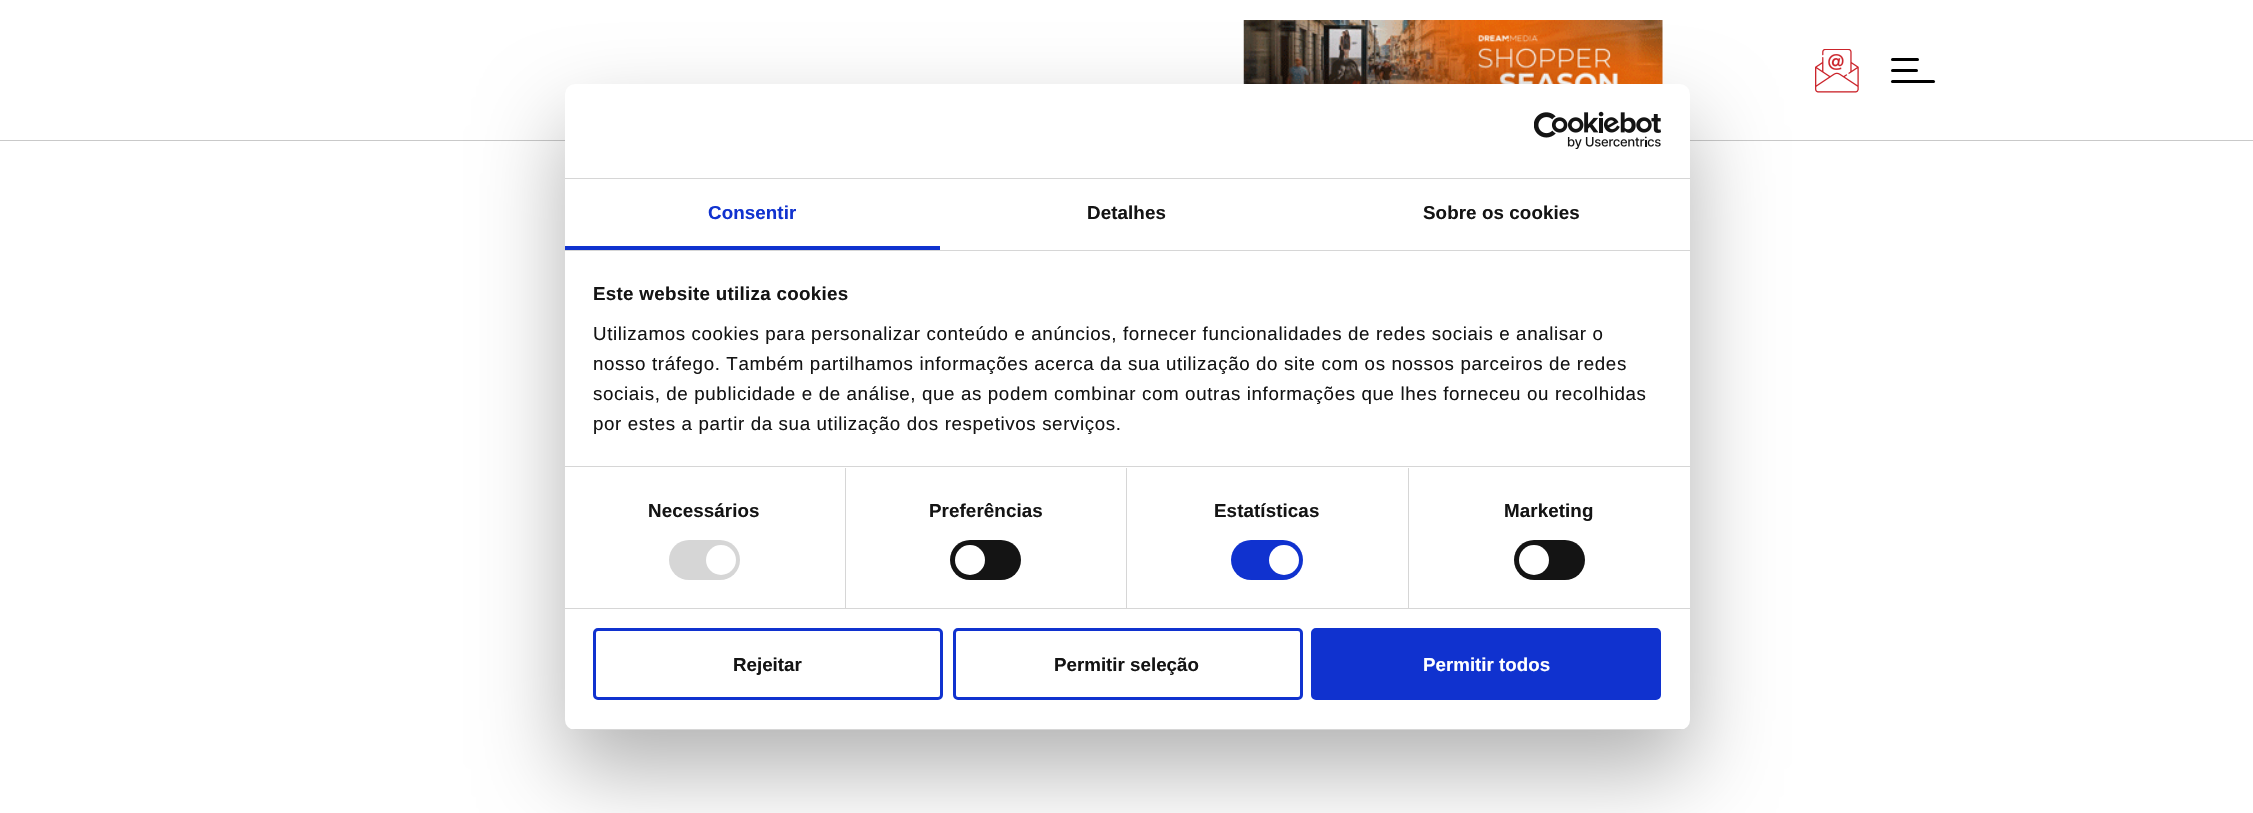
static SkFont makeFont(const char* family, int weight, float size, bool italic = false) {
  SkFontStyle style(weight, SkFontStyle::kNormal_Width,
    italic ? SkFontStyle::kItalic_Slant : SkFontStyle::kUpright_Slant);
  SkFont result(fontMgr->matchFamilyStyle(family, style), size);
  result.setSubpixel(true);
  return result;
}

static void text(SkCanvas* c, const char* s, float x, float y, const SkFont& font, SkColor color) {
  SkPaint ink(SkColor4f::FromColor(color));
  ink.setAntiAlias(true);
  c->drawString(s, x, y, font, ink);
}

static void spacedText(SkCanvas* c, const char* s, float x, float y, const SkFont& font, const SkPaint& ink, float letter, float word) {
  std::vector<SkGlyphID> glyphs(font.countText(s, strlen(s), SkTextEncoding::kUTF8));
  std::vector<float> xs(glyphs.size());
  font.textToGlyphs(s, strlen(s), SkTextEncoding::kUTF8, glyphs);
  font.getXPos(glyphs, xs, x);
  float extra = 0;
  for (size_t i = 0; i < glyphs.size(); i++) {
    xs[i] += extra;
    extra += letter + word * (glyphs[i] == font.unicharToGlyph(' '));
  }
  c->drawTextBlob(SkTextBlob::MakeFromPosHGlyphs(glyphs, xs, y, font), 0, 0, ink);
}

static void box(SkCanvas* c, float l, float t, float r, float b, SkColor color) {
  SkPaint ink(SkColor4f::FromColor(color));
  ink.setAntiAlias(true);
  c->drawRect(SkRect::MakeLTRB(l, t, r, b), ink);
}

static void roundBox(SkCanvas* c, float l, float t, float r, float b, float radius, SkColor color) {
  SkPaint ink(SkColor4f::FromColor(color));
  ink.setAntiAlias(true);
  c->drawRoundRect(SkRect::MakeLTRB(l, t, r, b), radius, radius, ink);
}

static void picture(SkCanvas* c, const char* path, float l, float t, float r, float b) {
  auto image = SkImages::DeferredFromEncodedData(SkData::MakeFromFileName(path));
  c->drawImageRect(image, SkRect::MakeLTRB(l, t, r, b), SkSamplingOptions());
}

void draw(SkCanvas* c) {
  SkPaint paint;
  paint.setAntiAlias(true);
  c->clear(0xffffffff);
  box(c, 0, 140, 2253, 141, 0xffc9c9c9);
  picture(c, "img_01.png", 1243, 20, 1663, 84);
  picture(c, "img_02.png", 1815, 49, 1859, 93);
  roundBox(c, 1891, 58, 1919, 61, 1.5f, 0xff000000);
  roundBox(c, 1891, 69, 1918, 72, 1.5f, 0xff000000);
  roundBox(c, 1891, 80, 1935, 83, 1.5f, 0xff000000);
  paint.setColor(0x4d000000);
  paint.setMaskFilter(SkMaskFilter::MakeBlur(kNormal_SkBlurStyle, 42.5f));
  c->drawRoundRect(SkRect::MakeLTRB(565, 124, 1690, 770), 10, 10, paint);
  paint.setMaskFilter(nullptr);
  roundBox(c, 565, 84, 1690, 730, 10, 0xffffffff);
  box(c, 565, 178, 1690, 179, 0xffd6d6d6);
  picture(c, "img_03.png", 1534, 111, 1661, 149);
  box(c, 565, 250, 1690, 251, 0xffd6d6d6);
  box(c, 565, 246, 940, 250, 0xff1032cf);
  SkFont face1 = makeFont("Liberation Sans", 700, 18.75f);
  paint.setColor(0xff1032cf);
  spacedText(c, "Consentir", 708, 219, face1, paint, 0.1f, 0);
  paint.setColor(0xff141414);
  spacedText(c, "Detalhes", 1087, 219, face1, paint, 0.1f, 0);
  spacedText(c, "Sobre os cookies", 1423, 219, face1, paint, 0.1f, 0);
  box(c, 565, 466, 1690, 467, 0xffd6d6d6);
  spacedText(c, "Este website utiliza cookies", 593, 300, face1, paint, 0.3f, 0);
  SkFont face2 = makeFont("Liberation Sans", 400, 18.75f);
  spacedText(c, "Utilizamos cookies para personalizar conteúdo e anúncios, fornecer funcionalidades de redes sociais e analisar o", 593, 340, face2, paint, 0.62f, 0);
  spacedText(c, "nosso tráfego. Também partilhamos informações acerca da sua utilização do site com os nossos parceiros de redes", 593, 370, face2, paint, 0.62f, 0);
  spacedText(c, "sociais, de publicidade e de análise, que as podem combinar com outras informações que lhes forneceu ou recolhidas", 593, 400, face2, paint, 0.62f, 0);
  spacedText(c, "por estes a partir da sua utilização dos respetivos serviços.", 593, 430, face2, paint, 0.62f, 0);
  box(c, 565, 608, 1690, 609, 0xffd6d6d6);
  box(c, 845, 468, 846, 608, 0xffd6d6d6);
  spacedText(c, "Necessários", 648, 517, face1, paint, 0.1f, 0);
  roundBox(c, 669, 540, 740, 580, 20, 0xffd6d6d6);
  paint.setColor(0xffffffff);
  c->drawCircle(721, 560, 15, paint);
  box(c, 1126, 468, 1127, 608, 0xffd6d6d6);
  paint.setColor(0xff141414);
  spacedText(c, "Preferências", 929, 517, face1, paint, 0.1f, 0);
  roundBox(c, 950, 540, 1021, 580, 20, 0xff141414);
  paint.setColor(0xffffffff);
  c->drawCircle(970, 560, 15, paint);
  box(c, 1408, 468, 1409, 608, 0xffd6d6d6);
  paint.setColor(0xff141414);
  spacedText(c, "Estatísticas", 1214, 517, face1, paint, 0.1f, 0);
  roundBox(c, 1231, 540, 1303, 580, 20, 0xff1032cf);
  paint.setColor(0xffffffff);
  c->drawCircle(1284, 560, 15, paint);
  paint.setColor(0xff141414);
  spacedText(c, "Marketing", 1504, 517, face1, paint, 0.1f, 0);
  roundBox(c, 1514, 540, 1585, 580, 20, 0xff141414);
  paint.setColor(0xffffffff);
  c->drawCircle(1534, 560, 15, paint);
  c->save();
  c->clipPath(SkPathBuilder().moveTo(575, 84).lineTo(1680, 84).cubicTo(1685.5f, 84, 1690, 88.5f, 1690, 94).lineTo(1690, 720).cubicTo(1690, 725.5f, 1685.5f, 730, 1680, 730).lineTo(575, 730).cubicTo(569.5f, 730, 565, 725.5f, 565, 720).lineTo(565, 94).cubicTo(565, 88.5f, 569.5f, 84, 575, 84).close().detach(), true);
  box(c, 565, 729, 1690, 730, 0xffd6d6d6);
  c->restore();
  paint.setStyle(SkPaint::kStroke_Style);
  paint.setStrokeWidth(3);
  paint.setColor(0xff1032cf);
  c->drawRoundRect(SkRect::MakeLTRB(594.5f, 629.5f, 941.5f, 698.5f), 3.5f, 3.5f, paint);
  text(c, "Rejeitar", 733, 671, face1, 0xff141414);
  c->drawRoundRect(SkRect::MakeLTRB(954.5f, 629.5f, 1301.5f, 698.5f), 3.5f, 3.5f, paint);
  text(c, "Permitir seleção", 1054, 671, face1, 0xff141414);
  paint.setStyle(SkPaint::kFill_Style);
  c->drawRoundRect(SkRect::MakeLTRB(1312.5f, 629.5f, 1659.5f, 698.5f), 3.5f, 3.5f, paint);
  paint.setStyle(SkPaint::kStroke_Style);
  c->drawRoundRect(SkRect::MakeLTRB(1312.5f, 629.5f, 1659.5f, 698.5f), 3.5f, 3.5f, paint);
  text(c, "Permitir todos", 1423, 671, face1, 0xffffffff);
}
